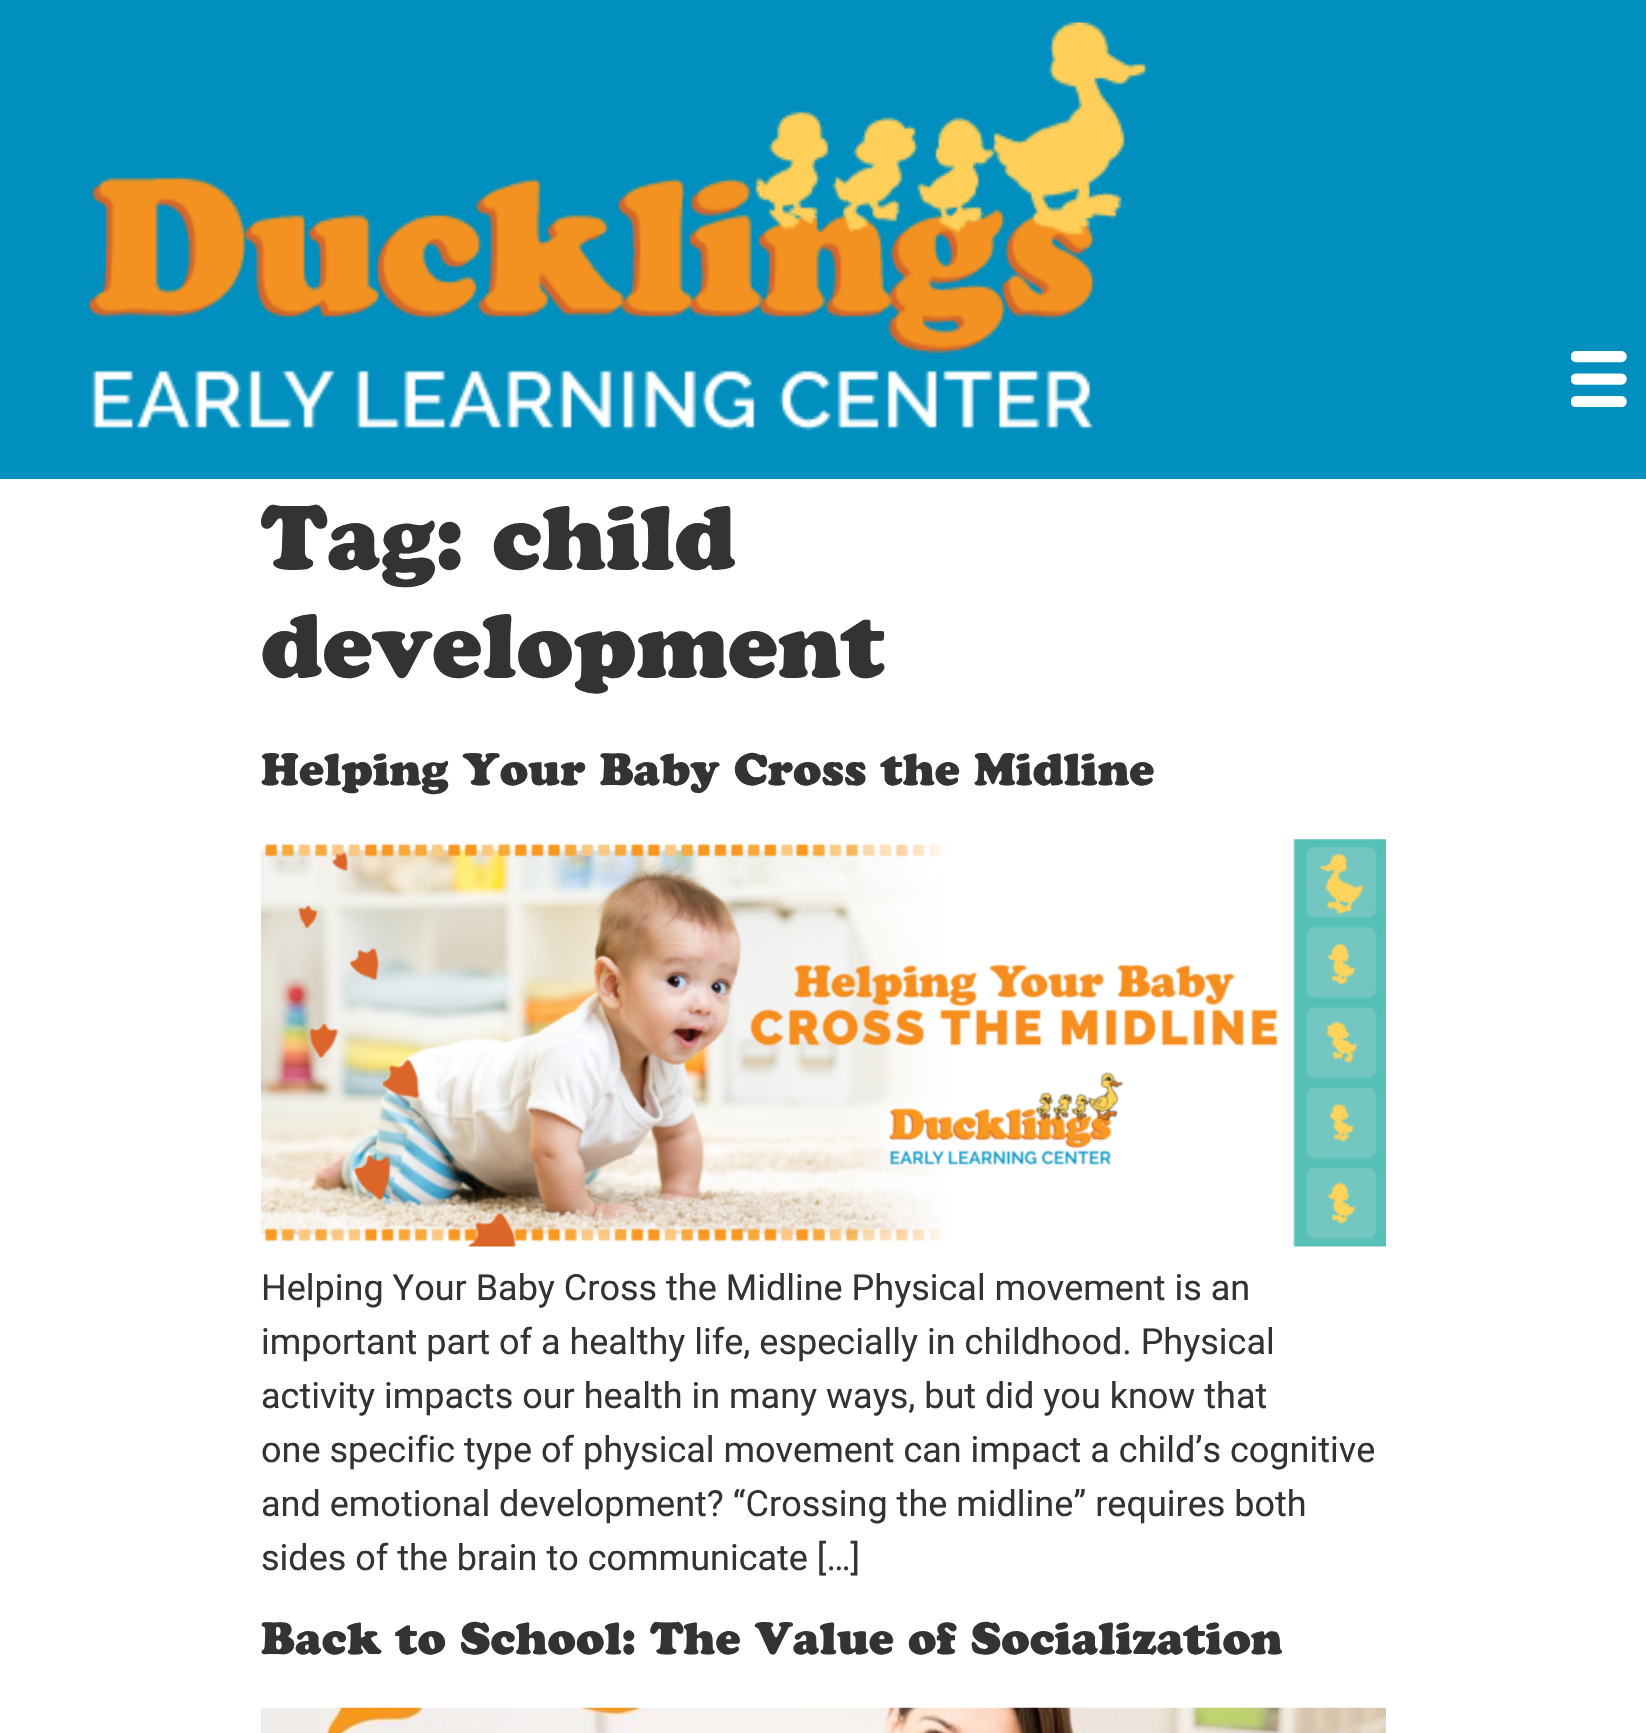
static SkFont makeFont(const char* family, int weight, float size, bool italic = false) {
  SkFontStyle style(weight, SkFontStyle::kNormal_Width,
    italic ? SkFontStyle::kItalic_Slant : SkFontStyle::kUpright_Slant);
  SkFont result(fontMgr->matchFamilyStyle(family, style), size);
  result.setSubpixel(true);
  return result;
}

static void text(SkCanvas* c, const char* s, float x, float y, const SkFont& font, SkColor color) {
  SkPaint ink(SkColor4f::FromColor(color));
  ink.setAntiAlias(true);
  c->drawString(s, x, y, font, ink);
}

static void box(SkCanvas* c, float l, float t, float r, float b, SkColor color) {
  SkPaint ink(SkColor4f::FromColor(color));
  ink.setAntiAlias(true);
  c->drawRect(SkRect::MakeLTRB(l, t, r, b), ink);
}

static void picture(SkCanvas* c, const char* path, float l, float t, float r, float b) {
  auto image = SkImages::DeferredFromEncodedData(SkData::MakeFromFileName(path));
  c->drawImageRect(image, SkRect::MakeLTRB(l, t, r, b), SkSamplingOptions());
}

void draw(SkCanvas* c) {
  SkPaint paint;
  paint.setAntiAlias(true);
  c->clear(0xffffffff);
  box(c, 0, 0, 1646, 479, 0xff008fbe);
  picture(c, "img_01.png", 90, 22, 1148, 431);
  picture(c, "img_02.png", 1571, 351, 1627, 407);
  SkFont face1 = makeFont("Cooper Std", 900, 90);
  text(c, "Tag: child", 261, 569, face1, 0xff333333);
  text(c, "development", 261, 677, face1, 0xff333333);
  SkFont face2 = makeFont("Cooper Std", 900, 45);
  text(c, "Helping Your Baby Cross the Midline", 261, 785, face2, 0xff333333);
  picture(c, "img_03.png", 261, 839, 1386, 1247);
  SkFont face3 = makeFont("Roboto", 400, 36);
  text(c, "Helping Your Baby Cross the Midline Physical movement is an", 261, 1300, face3, 0xff333333);
  text(c, "important part of a healthy life, especially in childhood. Physical", 261, 1354, face3, 0xff333333);
  text(c, "activity impacts our health in many ways, but did you know that", 261, 1408, face3, 0xff333333);
  text(c, "one specific type of physical movement can impact a child’s cognitive", 261, 1462, face3, 0xff333333);
  text(c, "and emotional development? “Crossing the midline” requires both", 261, 1516, face3, 0xff333333);
  text(c, "sides of the brain to communicate […]", 261, 1570, face3, 0xff333333);
  text(c, "Back to School: The Value of Socialization", 261, 1654, face2, 0xff333333);
  picture(c, "img_04.png", 261, 1707, 1386, 1733);
}
